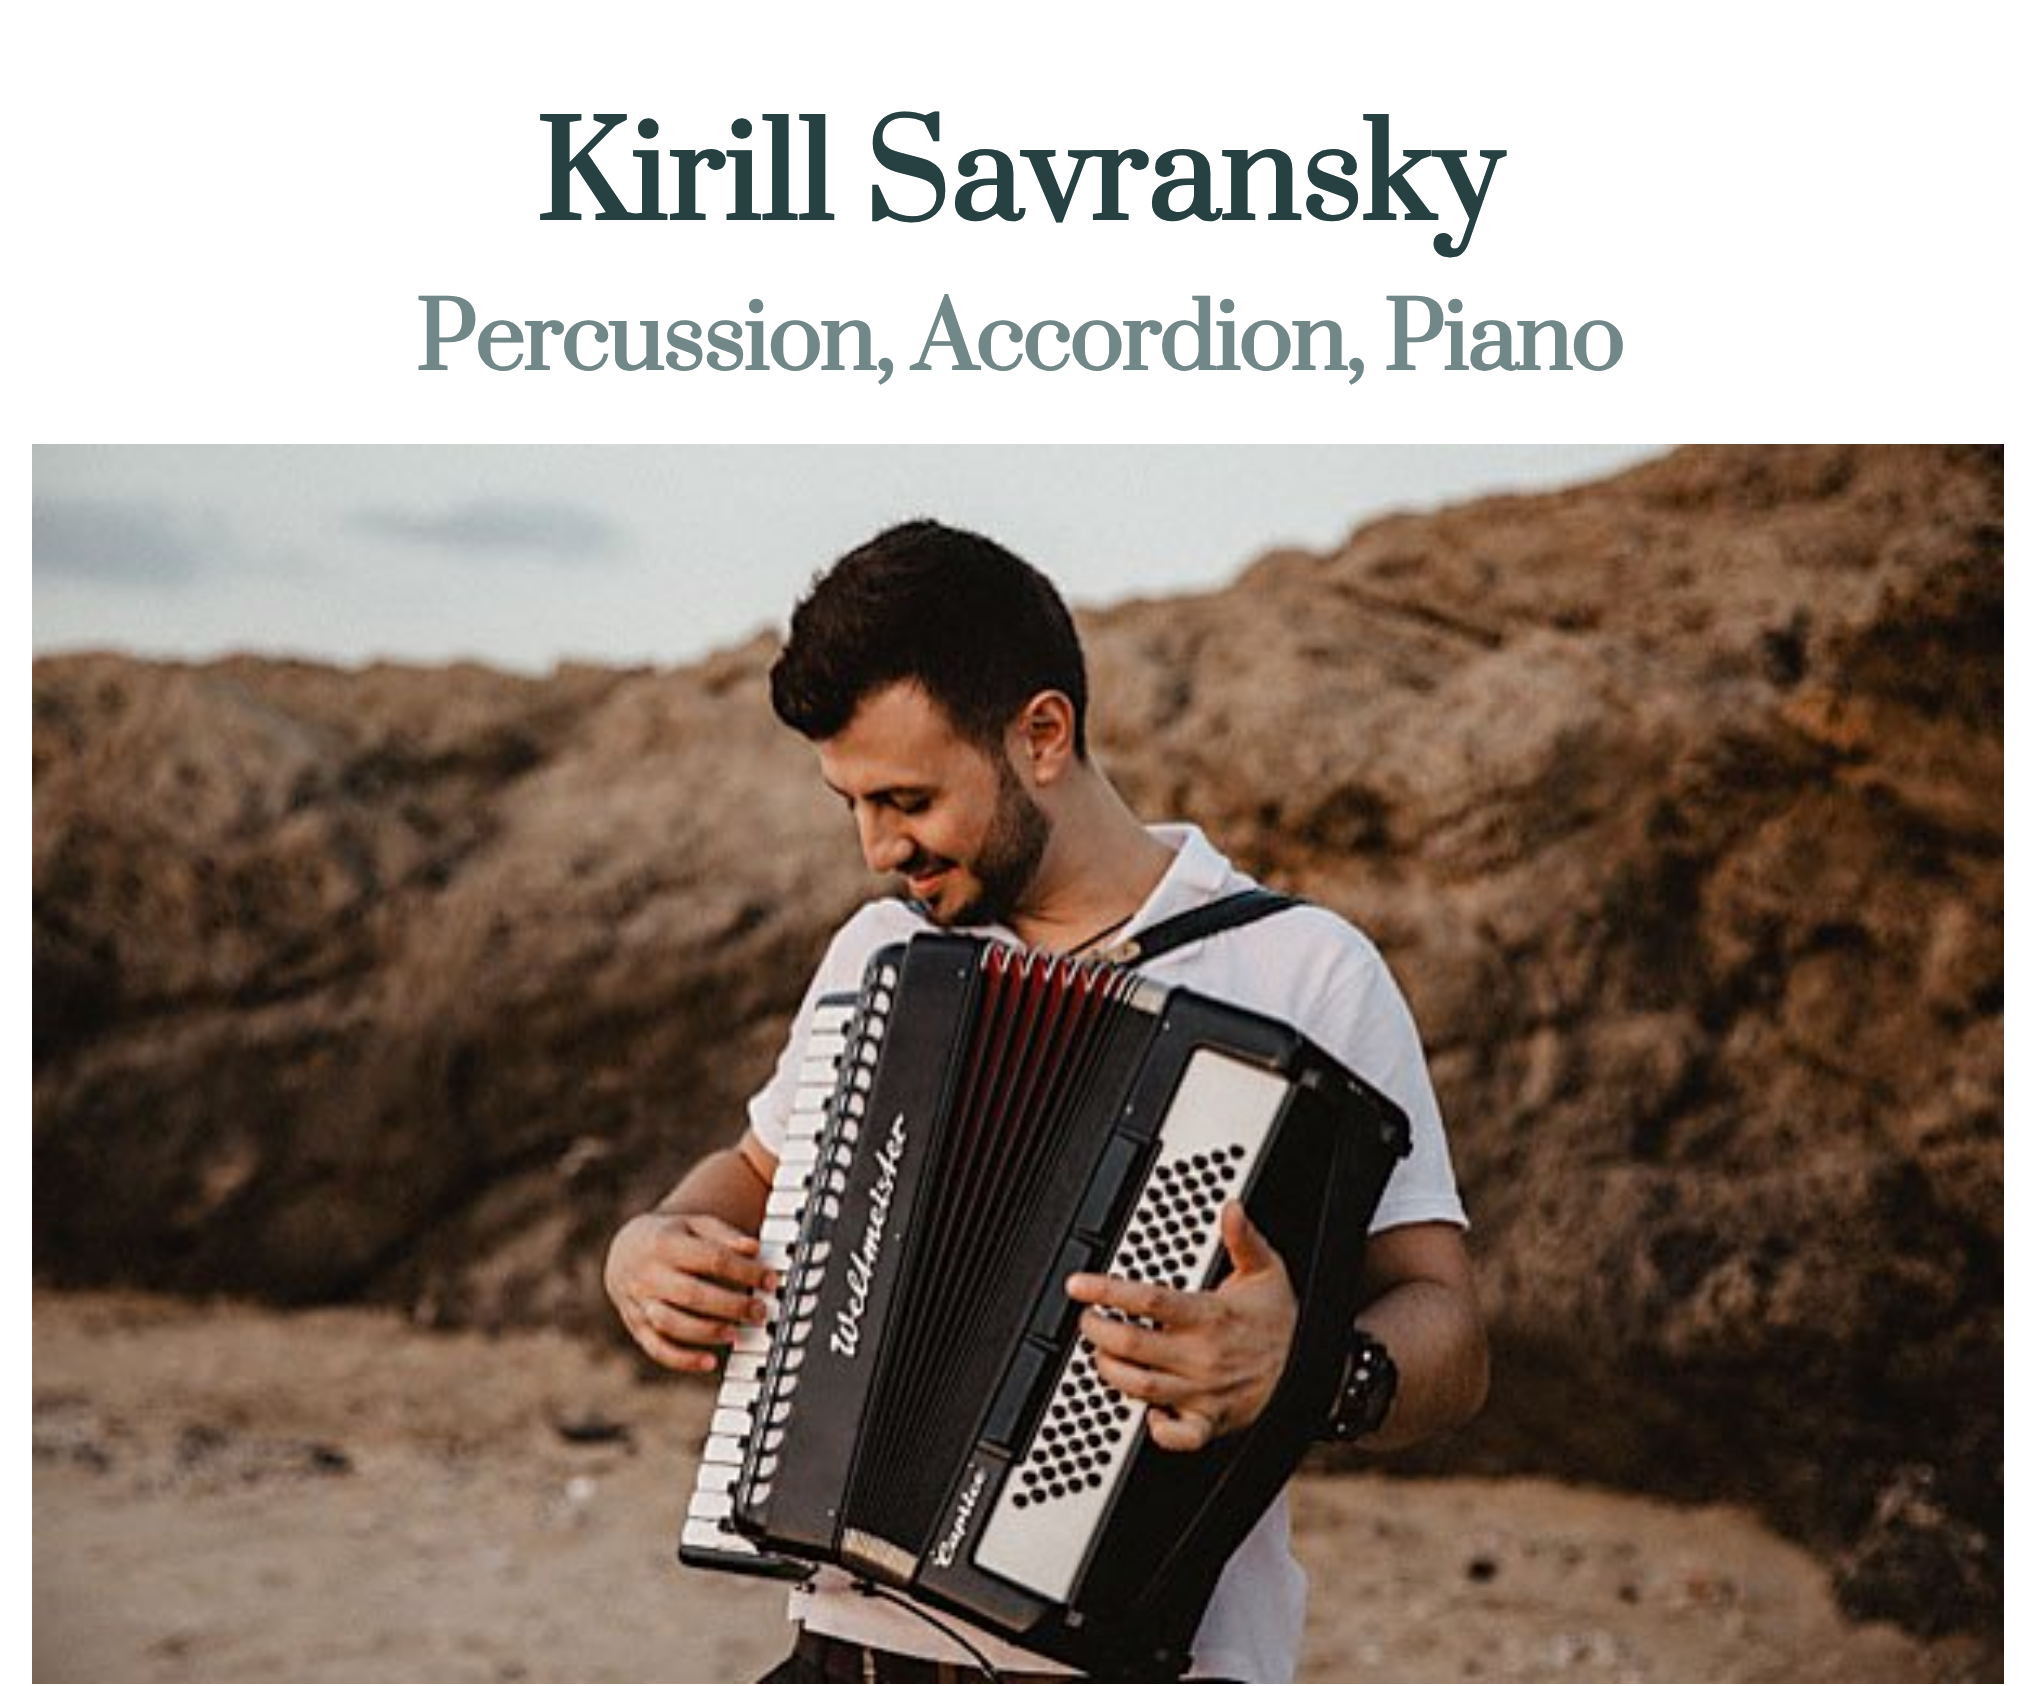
static SkFont makeFont(const char* family, int weight, float size, bool italic = false) {
  SkFontStyle style(weight, SkFontStyle::kNormal_Width,
    italic ? SkFontStyle::kItalic_Slant : SkFontStyle::kUpright_Slant);
  SkFont result(fontMgr->matchFamilyStyle(family, style), size);
  result.setSubpixel(true);
  return result;
}

static void text(SkCanvas* c, const char* s, float x, float y, const SkFont& font, SkColor color) {
  SkPaint ink(SkColor4f::FromColor(color));
  ink.setAntiAlias(true);
  c->drawString(s, x, y, font, ink);
}

static void spacedText(SkCanvas* c, const char* s, float x, float y, const SkFont& font, const SkPaint& ink, float letter, float word) {
  std::vector<SkGlyphID> glyphs(font.countText(s, strlen(s), SkTextEncoding::kUTF8));
  std::vector<float> xs(glyphs.size());
  font.textToGlyphs(s, strlen(s), SkTextEncoding::kUTF8, glyphs);
  font.getXPos(glyphs, xs, x);
  float extra = 0;
  for (size_t i = 0; i < glyphs.size(); i++) {
    xs[i] += extra;
    extra += letter + word * (glyphs[i] == font.unicharToGlyph(' '));
  }
  c->drawTextBlob(SkTextBlob::MakeFromPosHGlyphs(glyphs, xs, y, font), 0, 0, ink);
}

static void picture(SkCanvas* c, const char* path, float l, float t, float r, float b) {
  auto image = SkImages::DeferredFromEncodedData(SkData::MakeFromFileName(path));
  c->drawImageRect(image, SkRect::MakeLTRB(l, t, r, b), SkSamplingOptions());
}

void draw(SkCanvas* c) {
  SkPaint paint;
  paint.setAntiAlias(true);
  c->clear(0xffffffff);
  SkFont face1 = makeFont("Prata", 700, 128);
  text(c, "Kirill Savransky", 535, 220, face1, 0xff274142);
  SkFont face2 = makeFont("Prata", 700, 89.6f);
  paint.setColor(0xff728788);
  spacedText(c, "Percussion, Accordion, Piano", 415, 370, face2, paint, -2, 0);
  picture(c, "img_01.png", 32, 444, 2004, 1684);
}
